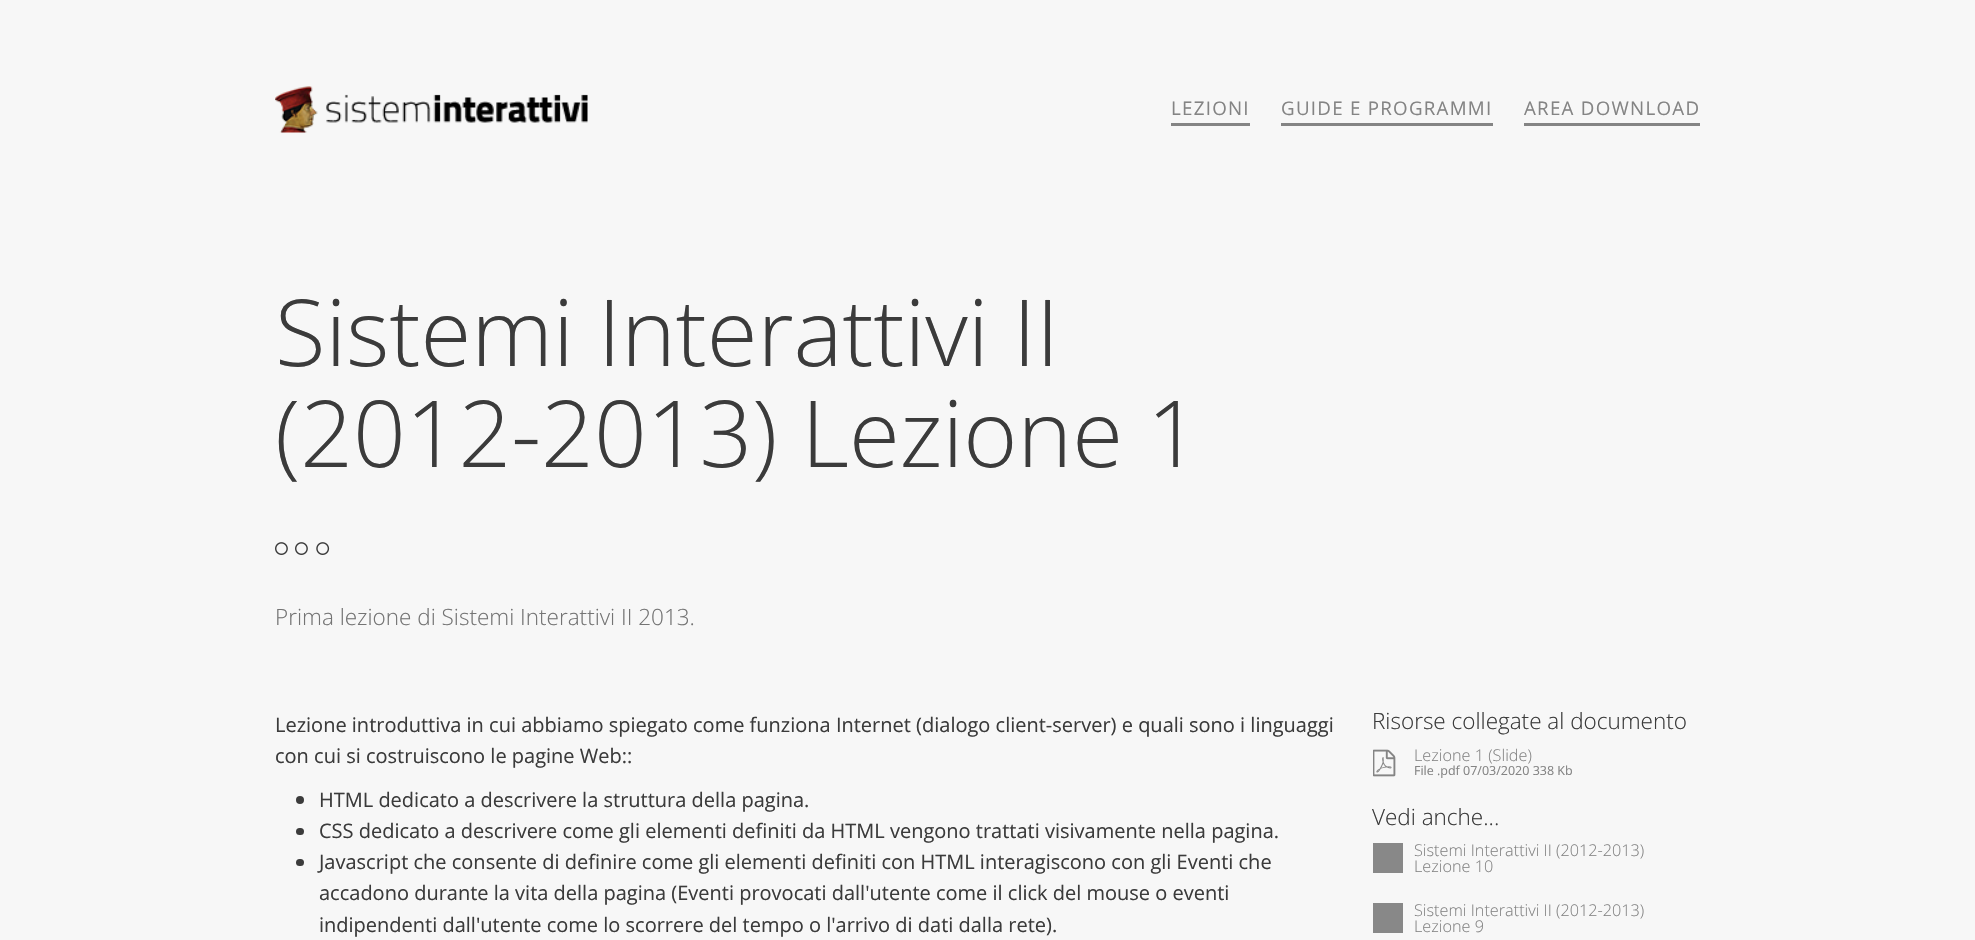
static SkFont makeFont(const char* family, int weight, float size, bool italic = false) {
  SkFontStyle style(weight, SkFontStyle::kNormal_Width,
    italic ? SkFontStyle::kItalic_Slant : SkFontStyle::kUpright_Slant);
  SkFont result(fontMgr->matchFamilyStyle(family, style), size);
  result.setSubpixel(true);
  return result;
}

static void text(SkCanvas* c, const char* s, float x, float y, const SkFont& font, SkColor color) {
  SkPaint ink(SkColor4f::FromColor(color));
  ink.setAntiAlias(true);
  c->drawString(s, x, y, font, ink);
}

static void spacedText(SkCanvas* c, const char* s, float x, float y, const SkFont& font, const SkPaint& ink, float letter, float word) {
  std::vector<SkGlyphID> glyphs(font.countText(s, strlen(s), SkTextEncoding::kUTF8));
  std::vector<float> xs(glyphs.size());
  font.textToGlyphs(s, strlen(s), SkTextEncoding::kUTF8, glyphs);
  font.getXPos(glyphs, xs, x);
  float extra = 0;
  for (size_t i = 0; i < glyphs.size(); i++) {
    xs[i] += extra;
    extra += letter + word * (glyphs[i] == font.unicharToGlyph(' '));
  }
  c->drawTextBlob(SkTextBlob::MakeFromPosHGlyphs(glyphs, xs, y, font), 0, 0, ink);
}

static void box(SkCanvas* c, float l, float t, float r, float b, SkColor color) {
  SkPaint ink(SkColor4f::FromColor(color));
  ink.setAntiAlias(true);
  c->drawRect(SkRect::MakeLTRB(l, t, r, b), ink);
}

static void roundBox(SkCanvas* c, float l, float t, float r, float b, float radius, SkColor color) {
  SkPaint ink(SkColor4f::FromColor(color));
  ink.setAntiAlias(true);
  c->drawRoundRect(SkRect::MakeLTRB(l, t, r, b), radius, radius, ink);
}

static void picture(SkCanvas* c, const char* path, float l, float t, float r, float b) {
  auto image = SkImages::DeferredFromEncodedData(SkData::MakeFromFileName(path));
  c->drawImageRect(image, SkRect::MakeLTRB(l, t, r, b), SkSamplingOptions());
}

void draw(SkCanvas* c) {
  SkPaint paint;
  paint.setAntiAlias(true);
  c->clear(0xfff7f7f7);
  picture(c, "img_01.png", 275, 86, 588, 133);
  box(c, 1171, 123, 1250, 126, 0xff848484);
  SkFont face1 = makeFont("Open Sans", 400, 18.75f);
  paint.setColor(0xff848484);
  spacedText(c, "LEZIONI", 1171, 115, face1, paint, 1.25f, 0);
  box(c, 1281, 123, 1493, 126, 0xff848484);
  spacedText(c, "GUIDE E PROGRAMMI", 1281, 115, face1, paint, 1.25f, 0);
  box(c, 1524, 123, 1700, 126, 0xff848484);
  spacedText(c, "AREA DOWNLOAD", 1524, 115, face1, paint, 1.25f, 0);
  SkFont face2 = makeFont("Open Sans", 300, 92.5f);
  text(c, "Sistemi Interattivi II", 275, 366, face2, 0xff3b3b3b);
  text(c, "(2012-2013) Lezione 1", 275, 467, face2, 0xff3b3b3b);
  picture(c, "img_02.png", 275, 542, 288, 555);
  picture(c, "img_02.png", 295, 542, 308, 555);
  picture(c, "img_03.png", 316, 542, 330, 555);
  SkFont face3 = makeFont("Open Sans", 300, 22.5f);
  text(c, "Prima lezione di Sistemi Interattivi II 2013.", 275, 625, face3, 0xff747474);
  SkFont face4 = makeFont("Open Sans", 400, 20);
  text(c, "Lezione introduttiva in cui abbiamo spiegato come funziona Internet (dialogo client-server) e quali sono i linguaggi", 275, 732, face4, 0xff3b3b3b);
  text(c, "con cui si costruiscono le pagine Web::", 275, 763, face4, 0xff3b3b3b);
  paint.setColor(0xff3b3b3b);
  c->drawCircle(300, 800, 4, paint);
  text(c, "HTML dedicato a descrivere la struttura della pagina.", 319, 807, face4, 0xff3b3b3b);
  roundBox(c, 296, 828, 304, 835, 3.5f, 0xff3b3b3b);
  text(c, "CSS dedicato a descrivere come gli elementi definiti da HTML vengono trattati visivamente nella pagina.", 319, 838, face4, 0xff3b3b3b);
  roundBox(c, 296, 859, 304, 866, 3.5f, 0xff3b3b3b);
  text(c, "Javascript che consente di definire come gli elementi definiti con HTML interagiscono con gli Eventi che", 319, 869, face4, 0xff3b3b3b);
  text(c, "accadono durante la vita della pagina (Eventi provocati dall'utente come il click del mouse o eventi", 319, 900, face4, 0xff3b3b3b);
  text(c, "indipendenti dall'utente come lo scorrere del tempo o l'arrivo di dati dalla rete).", 319, 932, face4, 0xff3b3b3b);
  text(c, "Risorse collegate al documento", 1372, 729, face3, 0xff3b3b3b);
  picture(c, "img_04.png", 1373, 749, 1396, 777);
  SkFont face5 = makeFont("Open Sans", 300, 16.25f);
  text(c, "Lezione 1 (Slide)", 1414, 761, face5, 0xff848484);
  SkFont face6 = makeFont("Open Sans", 400, 12.5f);
  text(c, "File .pdf 07/03/2020 338 Kb", 1414, 775, face6, 0xff848484);
  text(c, "Vedi anche...", 1372, 825, face3, 0xff3b3b3b);
  box(c, 1373, 843, 1403, 873, 0xff888888);
  text(c, "Sistemi Interattivi II (2012-2013)", 1414, 856, face5, 0xff848484);
  text(c, "Lezione 10", 1414, 872, face5, 0xff848484);
  box(c, 1373, 903, 1403, 933, 0xff888888);
  text(c, "Sistemi Interattivi II (2012-2013)", 1414, 916, face5, 0xff848484);
  text(c, "Lezione 9", 1414, 932, face5, 0xff848484);
}
